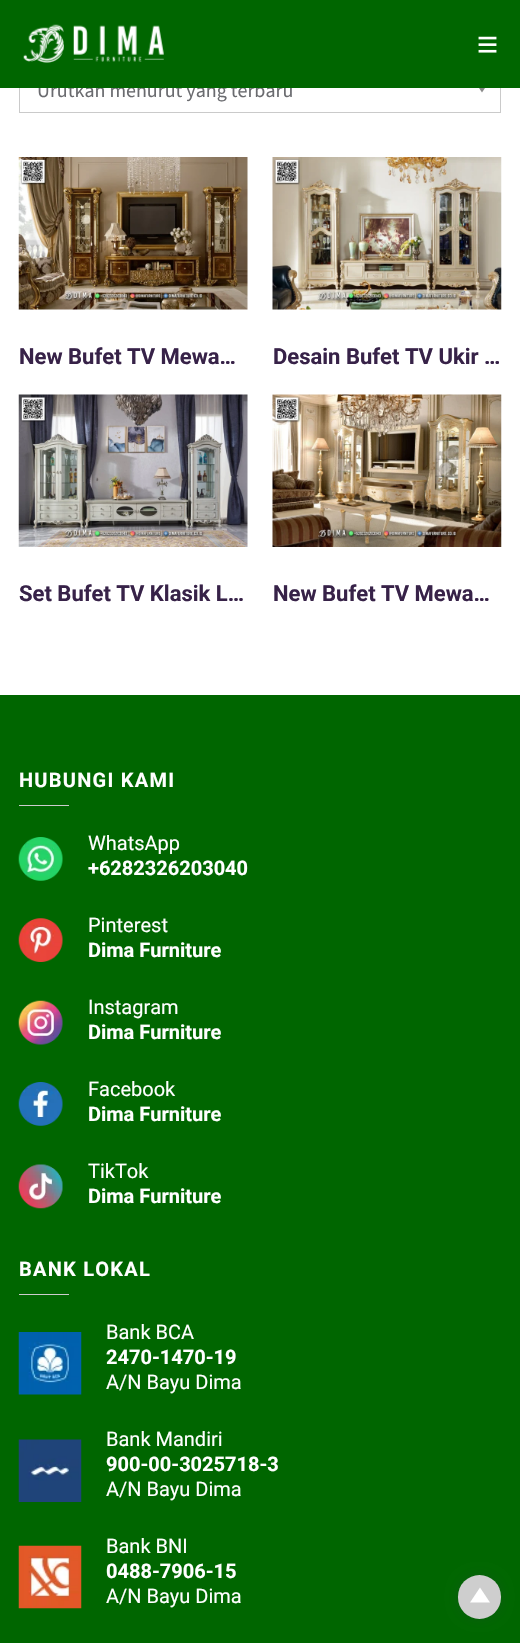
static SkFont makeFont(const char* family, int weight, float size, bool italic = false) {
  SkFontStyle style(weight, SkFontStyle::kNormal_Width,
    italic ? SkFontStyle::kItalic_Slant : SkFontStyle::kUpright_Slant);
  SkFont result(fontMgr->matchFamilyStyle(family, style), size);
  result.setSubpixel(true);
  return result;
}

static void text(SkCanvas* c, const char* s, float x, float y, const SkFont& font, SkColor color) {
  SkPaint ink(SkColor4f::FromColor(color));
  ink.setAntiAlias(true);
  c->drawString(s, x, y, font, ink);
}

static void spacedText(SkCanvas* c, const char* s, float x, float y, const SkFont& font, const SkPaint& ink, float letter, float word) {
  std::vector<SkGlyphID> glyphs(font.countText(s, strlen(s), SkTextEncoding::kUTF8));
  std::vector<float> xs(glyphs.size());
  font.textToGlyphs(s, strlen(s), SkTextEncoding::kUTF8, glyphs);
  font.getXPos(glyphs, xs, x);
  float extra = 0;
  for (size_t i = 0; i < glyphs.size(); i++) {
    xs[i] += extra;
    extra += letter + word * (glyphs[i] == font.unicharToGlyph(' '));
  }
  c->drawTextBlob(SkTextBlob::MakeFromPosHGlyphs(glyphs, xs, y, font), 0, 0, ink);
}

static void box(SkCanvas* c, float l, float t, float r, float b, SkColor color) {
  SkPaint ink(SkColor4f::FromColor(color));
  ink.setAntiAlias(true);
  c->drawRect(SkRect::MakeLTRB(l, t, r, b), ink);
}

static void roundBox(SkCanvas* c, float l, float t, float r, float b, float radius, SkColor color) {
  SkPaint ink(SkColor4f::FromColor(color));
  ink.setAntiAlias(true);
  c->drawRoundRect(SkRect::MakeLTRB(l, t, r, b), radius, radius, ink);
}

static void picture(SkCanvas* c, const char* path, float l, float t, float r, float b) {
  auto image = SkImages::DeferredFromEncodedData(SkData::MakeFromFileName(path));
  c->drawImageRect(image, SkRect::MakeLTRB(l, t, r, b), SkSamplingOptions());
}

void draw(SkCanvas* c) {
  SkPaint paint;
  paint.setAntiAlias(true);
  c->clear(0xffffffff);
  paint.setColor(0xff8a8a8a);
  c->drawPath(SkPathBuilder().moveTo(477, 85).lineTo(487, 85).lineTo(482, 92.5f).close().detach(), paint);
  paint.setStyle(SkPaint::kStroke_Style);
  paint.setStrokeWidth(1);
  paint.setColor(0xffcacaca);
  c->drawRect(SkRect::MakeLTRB(19.5f, 65.5f, 500.5f, 112.5f), paint);
  SkFont face1 = makeFont("Source Sans Pro", 400, 20);
  text(c, "Urutkan menurut yang terbaru", 37, 97, face1, 0xff6a6b6f);
  box(c, 0, 0, 520, 88, 0xff006600);
  picture(c, "img_01.png", 23, 24, 164, 63);
  picture(c, "img_02.png", 478, 36, 497, 53);
  picture(c, "img_03.png", 18, 157, 248, 310);
  SkFont face2 = makeFont("Roboto", 700, 22);
  text(c, "New Bufet TV Mewa…", 19, 364, face2, 0xff372248);
  picture(c, "img_04.png", 272, 157, 502, 310);
  text(c, "Desain Bufet TV Ukir …", 273, 364, face2, 0xff372248);
  picture(c, "img_05.png", 18, 394, 248, 547);
  text(c, "Set Bufet TV Klasik L…", 19, 601, face2, 0xff372248);
  picture(c, "img_06.png", 272, 394, 502, 547);
  text(c, "New Bufet TV Mewa…", 273, 601, face2, 0xff372248);
  box(c, 0, 695, 520, 1643, 0xff006600);
  SkFont face3 = makeFont("Roboto", 700, 20);
  paint.setStyle(SkPaint::kFill_Style);
  paint.setColor(0xffffffff);
  spacedText(c, "HUBUNGI KAMI", 19, 787, face3, paint, 1.25f, 0);
  box(c, 19, 805, 69, 806, 0xffcccccc);
  picture(c, "img_07.png", 18, 837, 63, 881);
  SkFont face4 = makeFont("Roboto", 400, 20);
  text(c, "WhatsApp", 88, 850, face4, 0xffffffff);
  text(c, "+6282326203040", 88, 875, face3, 0xffffffff);
  picture(c, "img_08.png", 18, 918, 63, 962);
  text(c, "Pinterest", 88, 932, face4, 0xffffffff);
  text(c, "Dima Furniture", 88, 957, face3, 0xffffffff);
  picture(c, "img_09.png", 18, 1000, 63, 1045);
  text(c, "Instagram", 88, 1014, face4, 0xffffffff);
  text(c, "Dima Furniture", 88, 1039, face3, 0xffffffff);
  picture(c, "img_10.png", 18, 1082, 63, 1126);
  text(c, "Facebook", 88, 1096, face4, 0xffffffff);
  text(c, "Dima Furniture", 88, 1121, face3, 0xffffffff);
  picture(c, "img_11.png", 18, 1164, 63, 1209);
  text(c, "TikTok", 88, 1178, face4, 0xffffffff);
  text(c, "Dima Furniture", 88, 1203, face3, 0xffffffff);
  spacedText(c, "BANK LOKAL", 19, 1276, face3, paint, 1.25f, 0);
  box(c, 19, 1294, 69, 1295, 0xffcccccc);
  picture(c, "img_12.png", 18, 1332, 82, 1395);
  text(c, "Bank BCA", 106, 1339, face4, 0xffffffff);
  text(c, "2470-1470-19", 106, 1364, face3, 0xffffffff);
  text(c, "A/N Bayu Dima", 106, 1389, face4, 0xffffffff);
  picture(c, "img_13.png", 18, 1439, 82, 1502);
  text(c, "Bank Mandiri", 106, 1446, face4, 0xffffffff);
  text(c, "900-00-3025718-3", 106, 1471, face3, 0xffffffff);
  text(c, "A/N Bayu Dima", 106, 1496, face4, 0xffffffff);
  picture(c, "img_14.png", 18, 1545, 82, 1609);
  text(c, "Bank BNI", 106, 1553, face4, 0xffffffff);
  text(c, "0488-7906-15", 106, 1578, face3, 0xffffffff);
  text(c, "A/N Bayu Dima", 106, 1603, face4, 0xffffffff);
  paint.setColor(0x1a6a0aab);
  paint.setMaskFilter(SkMaskFilter::MakeBlur(kNormal_SkBlurStyle, 6));
  c->drawRoundRect(SkRect::MakeLTRB(458, 1575, 501, 1619), 21.5f, 21.5f, paint);
  paint.setMaskFilter(nullptr);
  roundBox(c, 458, 1575, 501, 1619, 21.5f, 0xffcecece);
  paint.setColor(0xffffffff);
  c->drawPath(SkPathBuilder().moveTo(480, 1587.5f).lineTo(490, 1602.5f).lineTo(470, 1602.5f).close().detach(), paint);
}
